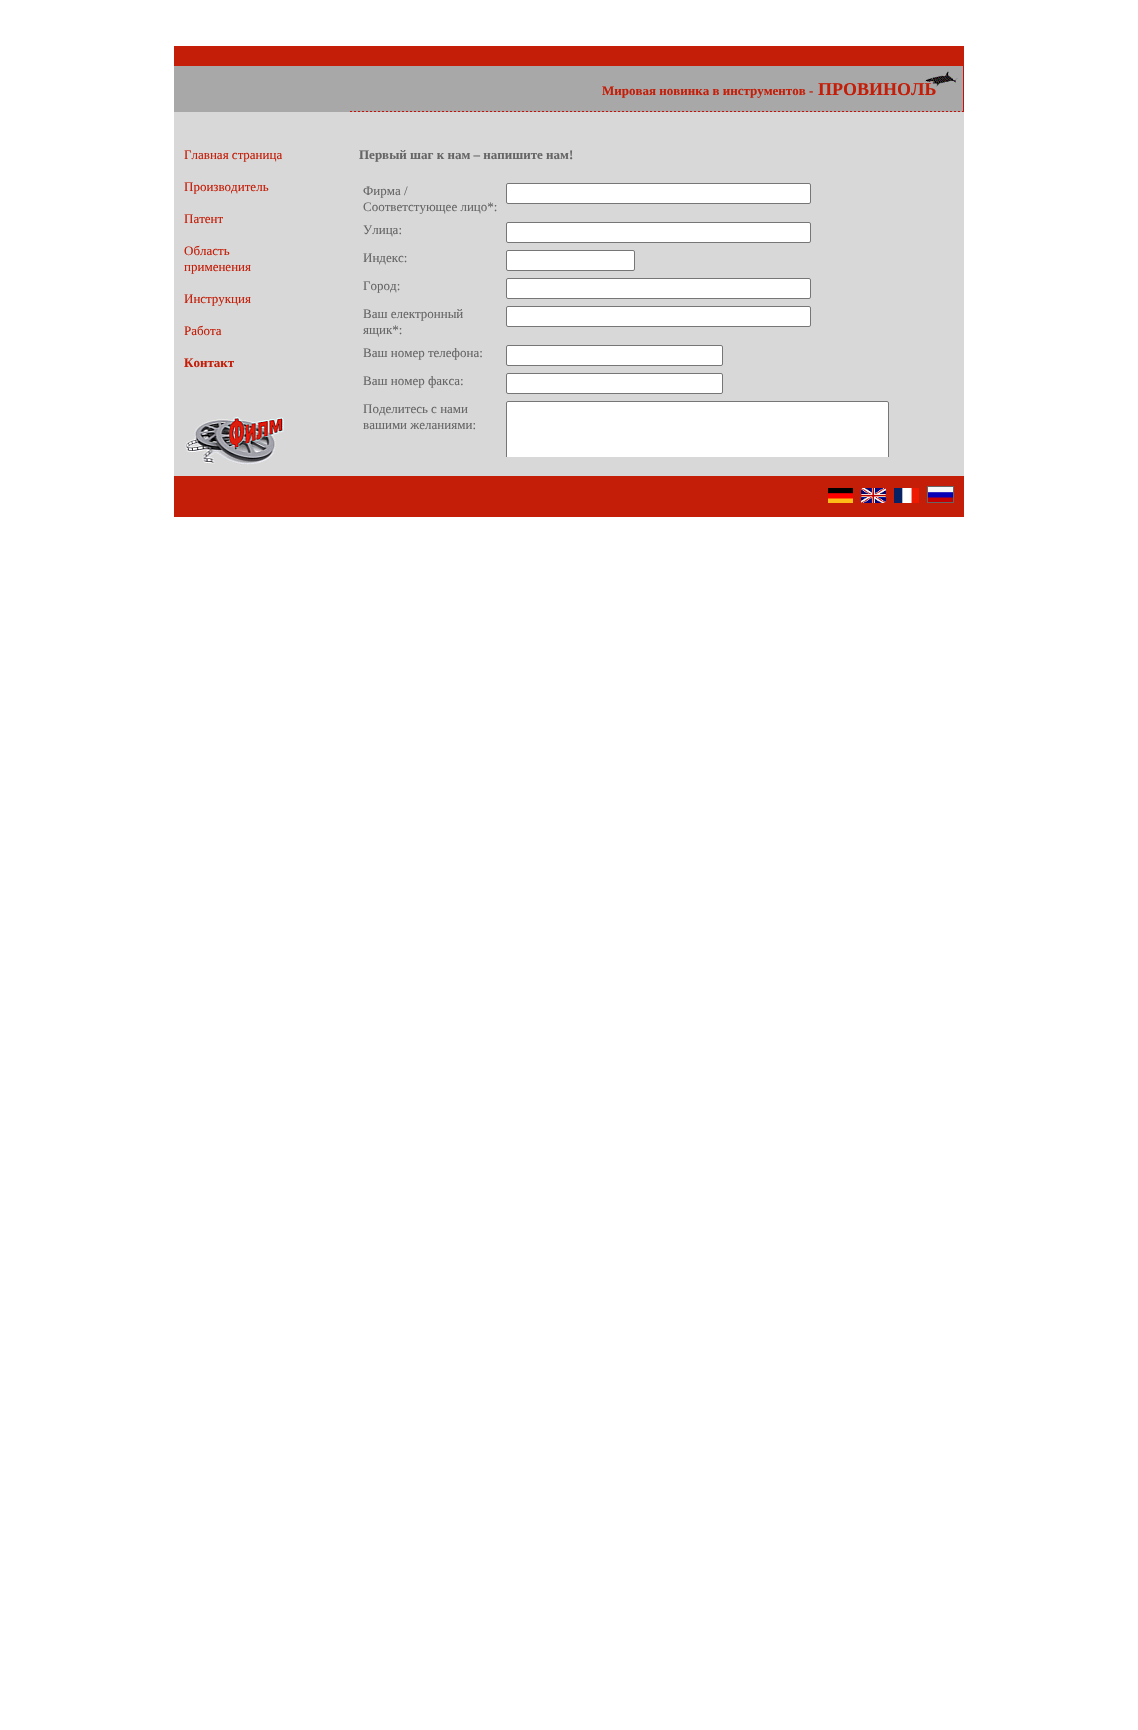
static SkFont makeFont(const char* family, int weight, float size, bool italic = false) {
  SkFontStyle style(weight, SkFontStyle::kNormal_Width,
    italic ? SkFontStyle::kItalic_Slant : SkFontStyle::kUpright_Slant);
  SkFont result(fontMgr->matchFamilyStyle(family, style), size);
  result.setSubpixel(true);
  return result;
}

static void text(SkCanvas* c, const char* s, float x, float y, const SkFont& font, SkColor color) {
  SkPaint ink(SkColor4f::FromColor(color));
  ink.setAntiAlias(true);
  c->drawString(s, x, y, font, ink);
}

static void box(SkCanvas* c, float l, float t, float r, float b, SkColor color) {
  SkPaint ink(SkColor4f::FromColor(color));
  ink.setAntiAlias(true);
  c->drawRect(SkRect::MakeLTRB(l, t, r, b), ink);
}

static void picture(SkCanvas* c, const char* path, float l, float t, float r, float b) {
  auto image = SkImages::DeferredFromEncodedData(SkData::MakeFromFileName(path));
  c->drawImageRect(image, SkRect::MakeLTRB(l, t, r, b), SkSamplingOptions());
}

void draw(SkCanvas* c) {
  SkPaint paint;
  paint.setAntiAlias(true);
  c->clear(0xffffffff);
  box(c, 174, 46, 964, 66, 0xffc41d08);
  box(c, 174, 66, 349, 112, 0xffa8a8a8);
  picture(c, "img_01.png", 349, 66, 964, 112);
  SkFont face1 = makeFont("Liberation Serif", 700, 13);
  text(c, "Mиpoвaя нoвинка в инструментов -", 602, 95, face1, 0xffc41d08);
  SkFont face2 = makeFont("Liberation Serif", 700, 18);
  text(c, "ПРОВИНОЛЬ", 818, 95, face2, 0xffc41d08);
  box(c, 174, 112, 349, 476, 0xffd8d8d8);
  SkFont face3 = makeFont("Liberation Serif", 400, 13);
  text(c, "Главная страница", 184, 159, face3, 0xffc41d08);
  text(c, "Производитель", 184, 191, face3, 0xffc41d08);
  text(c, "Патент", 184, 223, face3, 0xffc41d08);
  text(c, "Область", 184, 255, face3, 0xffc41d08);
  text(c, "применения", 184, 271, face3, 0xffc41d08);
  text(c, "Инструкция", 184, 303, face3, 0xffc41d08);
  text(c, "Работа", 184, 335, face3, 0xffc41d08);
  text(c, "Контакт", 184, 367, face1, 0xffc41d08);
  box(c, 349, 112, 964, 476, 0xffd8d8d8);
  text(c, "Первый шаг к нам – напишите нам!", 359, 159, face1, 0xff666666);
  text(c, "Фирма /", 363, 195, face3, 0xff666666);
  text(c, "Соответстующее лицо*:", 363, 211, face3, 0xff666666);
  paint.setColor(0xffffffff);
  c->drawRoundRect(SkRect::MakeLTRB(506.5f, 183.5f, 810.5f, 203.5f), 1.5f, 1.5f, paint);
  paint.setStyle(SkPaint::kStroke_Style);
  paint.setStrokeWidth(1);
  paint.setColor(0xff767676);
  c->drawRoundRect(SkRect::MakeLTRB(506.5f, 183.5f, 810.5f, 203.5f), 1.5f, 1.5f, paint);
  text(c, "Улица:", 363, 234, face3, 0xff666666);
  paint.setStyle(SkPaint::kFill_Style);
  paint.setColor(0xffffffff);
  c->drawRoundRect(SkRect::MakeLTRB(506.5f, 222.5f, 810.5f, 242.5f), 1.5f, 1.5f, paint);
  paint.setStyle(SkPaint::kStroke_Style);
  paint.setColor(0xff767676);
  c->drawRoundRect(SkRect::MakeLTRB(506.5f, 222.5f, 810.5f, 242.5f), 1.5f, 1.5f, paint);
  text(c, "Индекс:", 363, 262, face3, 0xff666666);
  paint.setStyle(SkPaint::kFill_Style);
  paint.setColor(0xffffffff);
  c->drawRoundRect(SkRect::MakeLTRB(506.5f, 250.5f, 634.5f, 270.5f), 1.5f, 1.5f, paint);
  paint.setStyle(SkPaint::kStroke_Style);
  paint.setColor(0xff767676);
  c->drawRoundRect(SkRect::MakeLTRB(506.5f, 250.5f, 634.5f, 270.5f), 1.5f, 1.5f, paint);
  text(c, "Город:", 363, 290, face3, 0xff666666);
  paint.setStyle(SkPaint::kFill_Style);
  paint.setColor(0xffffffff);
  c->drawRoundRect(SkRect::MakeLTRB(506.5f, 278.5f, 810.5f, 298.5f), 1.5f, 1.5f, paint);
  paint.setStyle(SkPaint::kStroke_Style);
  paint.setColor(0xff767676);
  c->drawRoundRect(SkRect::MakeLTRB(506.5f, 278.5f, 810.5f, 298.5f), 1.5f, 1.5f, paint);
  text(c, "Ваш електронный", 363, 318, face3, 0xff666666);
  text(c, "ящик*:", 363, 334, face3, 0xff666666);
  paint.setStyle(SkPaint::kFill_Style);
  paint.setColor(0xffffffff);
  c->drawRoundRect(SkRect::MakeLTRB(506.5f, 306.5f, 810.5f, 326.5f), 1.5f, 1.5f, paint);
  paint.setStyle(SkPaint::kStroke_Style);
  paint.setColor(0xff767676);
  c->drawRoundRect(SkRect::MakeLTRB(506.5f, 306.5f, 810.5f, 326.5f), 1.5f, 1.5f, paint);
  text(c, "Ваш номер телефона:", 363, 357, face3, 0xff666666);
  paint.setStyle(SkPaint::kFill_Style);
  paint.setColor(0xffffffff);
  c->drawRoundRect(SkRect::MakeLTRB(506.5f, 345.5f, 722.5f, 365.5f), 1.5f, 1.5f, paint);
  paint.setStyle(SkPaint::kStroke_Style);
  paint.setColor(0xff767676);
  c->drawRoundRect(SkRect::MakeLTRB(506.5f, 345.5f, 722.5f, 365.5f), 1.5f, 1.5f, paint);
  text(c, "Ваш номер факса:", 363, 385, face3, 0xff666666);
  paint.setStyle(SkPaint::kFill_Style);
  paint.setColor(0xffffffff);
  c->drawRoundRect(SkRect::MakeLTRB(506.5f, 373.5f, 722.5f, 393.5f), 1.5f, 1.5f, paint);
  paint.setStyle(SkPaint::kStroke_Style);
  paint.setColor(0xff767676);
  c->drawRoundRect(SkRect::MakeLTRB(506.5f, 373.5f, 722.5f, 393.5f), 1.5f, 1.5f, paint);
  text(c, "Поделитесь с нами", 363, 413, face3, 0xff666666);
  text(c, "вашими желаниями:", 363, 429, face3, 0xff666666);
  paint.setStyle(SkPaint::kFill_Style);
  paint.setColor(0xffffffff);
  c->drawPath(SkPathBuilder().moveTo(508, 401).lineTo(887, 401).cubicTo(888, 401, 889, 402, 889, 403).lineTo(889, 457).lineTo(506, 457).lineTo(506, 403).cubicTo(506, 402, 507, 401, 508, 401).close().detach(), paint);
  box(c, 174, 476, 964, 517, 0xffc41d08);
  picture(c, "img_03.png", 828, 488, 853, 503);
  picture(c, "img_04.png", 861, 488, 886, 503);
  c->save();
  c->clipRect(SkRect::MakeLTRB(359, 131, 954, 457));
  paint.setStyle(SkPaint::kStroke_Style);
  paint.setColor(0xff767676);
  c->drawRoundRect(SkRect::MakeLTRB(506.5f, 401.5f, 888.5f, 586.5f), 1.5f, 1.5f, paint);
  c->restore();
  picture(c, "img_02.png", 185, 416, 284, 466);
  paint.setColor(0xff666666);
  c->drawRect(SkRect::MakeLTRB(927.5f, 486.5f, 953.5f, 502.5f), paint);
  picture(c, "img_05.png", 894, 488, 919, 503);
  picture(c, "img_06.png", 928, 487, 953, 502);
}
